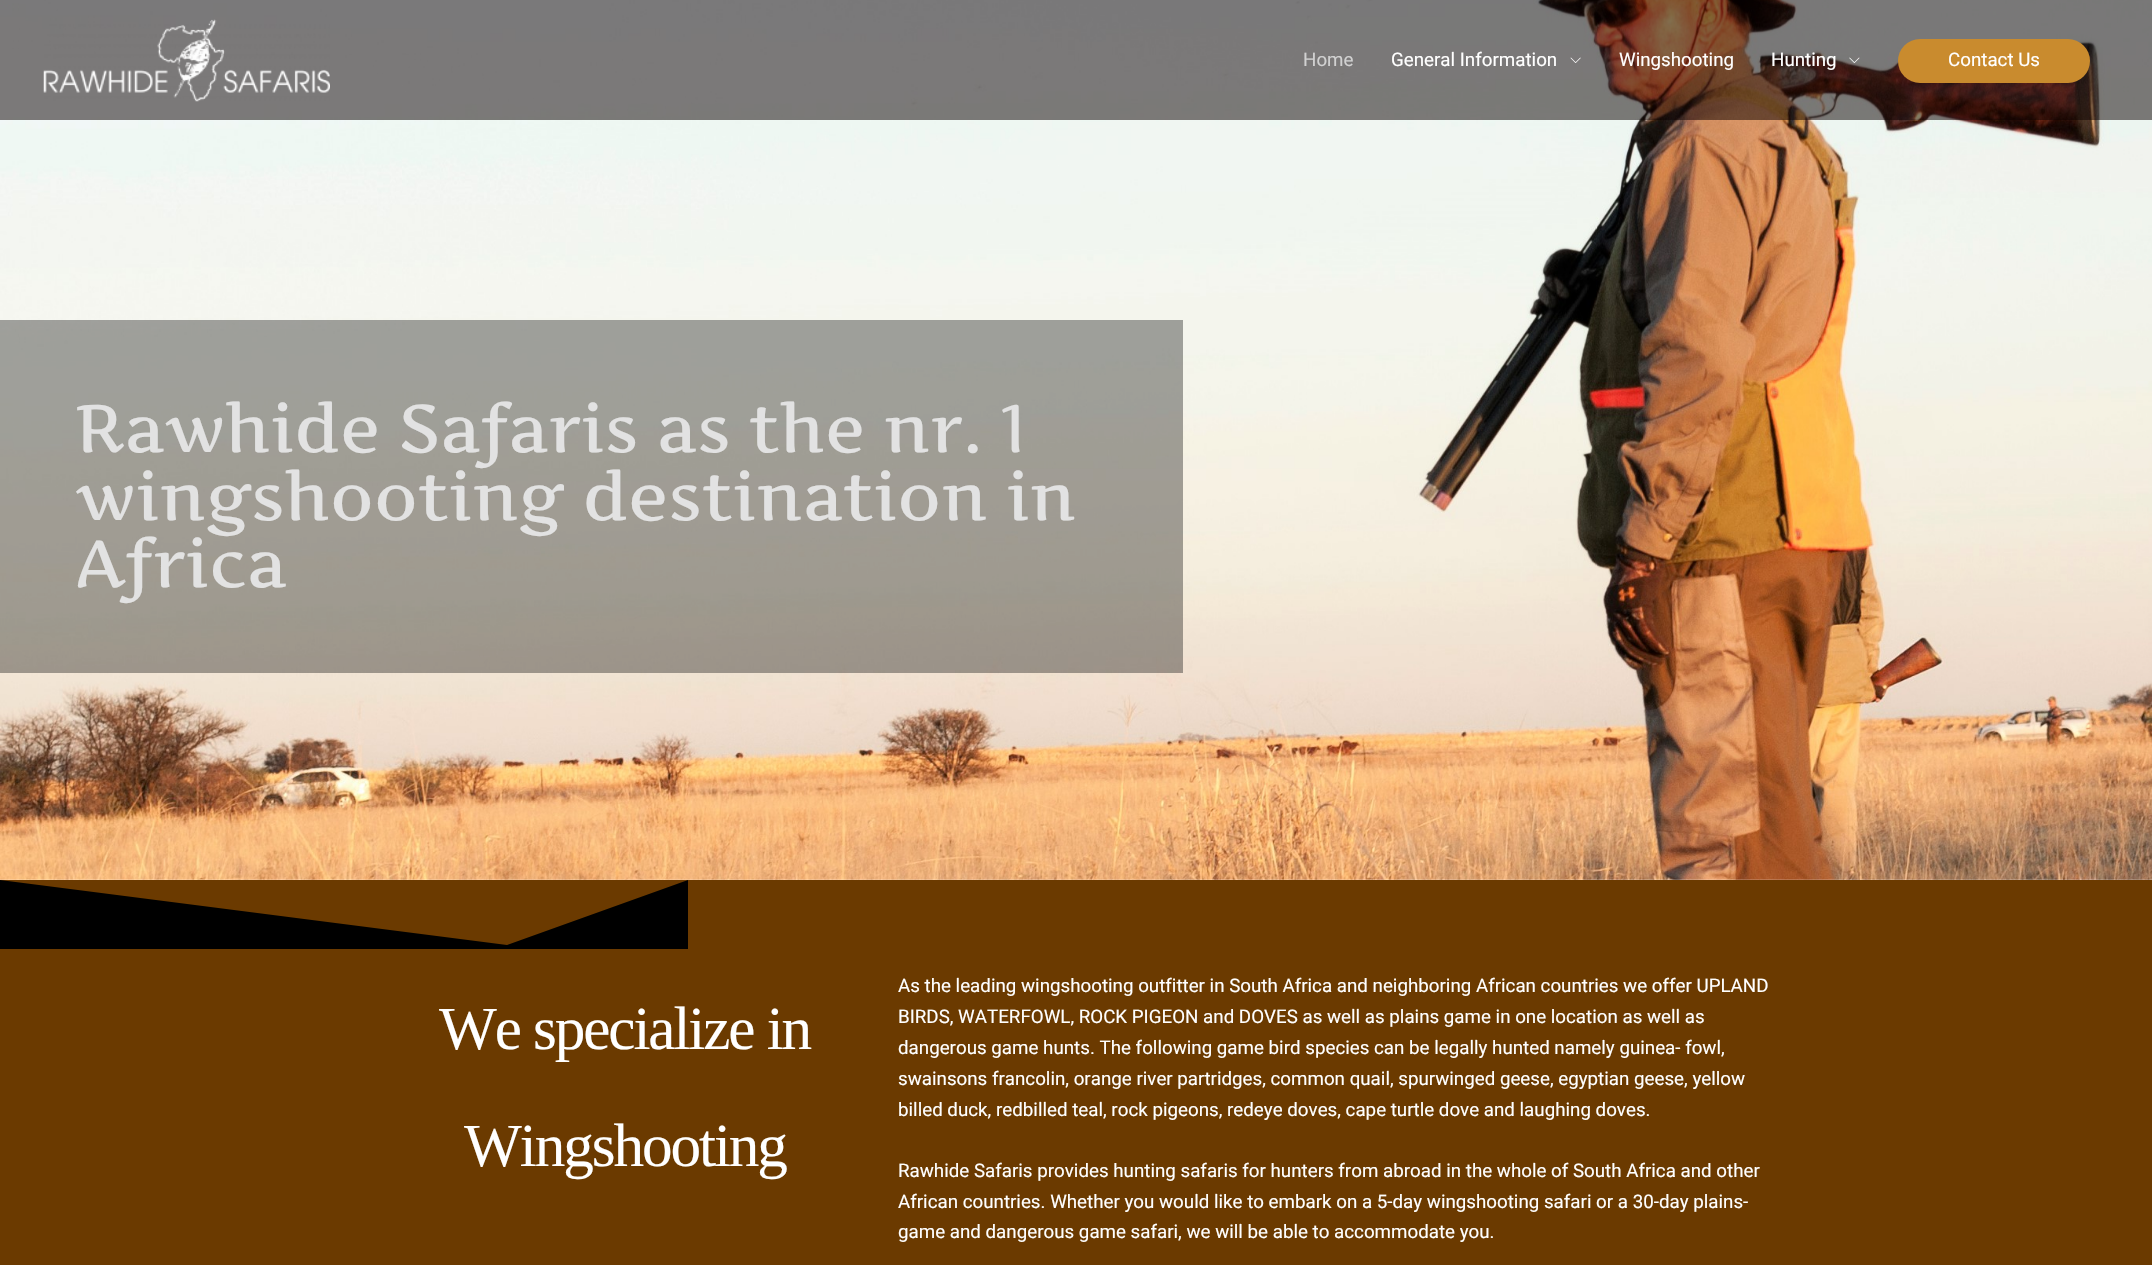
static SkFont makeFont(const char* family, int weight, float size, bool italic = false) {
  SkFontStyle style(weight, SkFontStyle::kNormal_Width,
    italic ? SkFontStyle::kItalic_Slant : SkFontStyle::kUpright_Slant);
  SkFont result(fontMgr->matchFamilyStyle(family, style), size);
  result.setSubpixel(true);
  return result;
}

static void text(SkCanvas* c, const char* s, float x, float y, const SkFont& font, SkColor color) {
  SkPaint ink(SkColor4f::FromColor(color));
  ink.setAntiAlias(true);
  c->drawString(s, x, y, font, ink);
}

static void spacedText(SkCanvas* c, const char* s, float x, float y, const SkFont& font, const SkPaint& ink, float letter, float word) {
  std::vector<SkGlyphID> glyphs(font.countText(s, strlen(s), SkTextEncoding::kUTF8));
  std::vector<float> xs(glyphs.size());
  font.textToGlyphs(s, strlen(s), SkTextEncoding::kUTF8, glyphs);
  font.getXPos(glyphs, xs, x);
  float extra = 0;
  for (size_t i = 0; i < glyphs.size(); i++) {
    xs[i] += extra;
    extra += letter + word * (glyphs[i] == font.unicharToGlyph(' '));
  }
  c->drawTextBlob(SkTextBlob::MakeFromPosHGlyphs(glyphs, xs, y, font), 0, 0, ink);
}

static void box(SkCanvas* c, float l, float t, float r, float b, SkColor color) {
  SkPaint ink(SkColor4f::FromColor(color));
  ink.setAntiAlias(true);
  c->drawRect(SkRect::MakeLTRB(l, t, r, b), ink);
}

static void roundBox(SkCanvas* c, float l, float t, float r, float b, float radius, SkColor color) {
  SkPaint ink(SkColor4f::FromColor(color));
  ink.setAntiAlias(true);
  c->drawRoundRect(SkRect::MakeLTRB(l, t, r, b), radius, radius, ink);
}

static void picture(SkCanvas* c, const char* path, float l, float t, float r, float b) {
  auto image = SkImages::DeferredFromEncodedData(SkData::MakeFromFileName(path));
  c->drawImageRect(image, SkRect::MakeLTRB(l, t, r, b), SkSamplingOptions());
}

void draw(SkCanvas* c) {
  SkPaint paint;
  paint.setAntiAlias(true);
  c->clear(0xffffffff);
  picture(c, "img_04.png", 0, 0, 2152, 880);
  box(c, 0, 0, 2152, 120, 0x820a0000);
  picture(c, "img_01.png", 43, 19, 330, 102);
  SkFont face1 = makeFont("Roboto", 400, 18.75f);
  text(c, "Home", 1303, 66, face1, 0xffd1d1d1);
  text(c, "General Information", 1391, 66, face1, 0xffffffff);
  picture(c, "img_02.png", 1570, 57, 1581, 63);
  text(c, "Wingshooting", 1619, 66, face1, 0xffffffff);
  text(c, "Hunting", 1771, 66, face1, 0xffffffff);
  picture(c, "img_03.png", 1849, 57, 1860, 63);
  roundBox(c, 1898, 39, 2090, 83, 22, 0xffc98b2e);
  text(c, "Contact Us", 1948, 66, face1, 0xffffffff);
  box(c, 0, 320, 1183, 673, 0x5e0c0c0c);
  SkFont face2 = makeFont("Artifika", 400, 67.5f);
  text(c, "Rawhide Safaris as the nr. 1", 75, 452, face2, 0xffe2e2e2);
  text(c, "wingshooting destination in", 75, 520, face2, 0xffe2e2e2);
  text(c, "Africa", 75, 587, face2, 0xffe2e2e2);
  box(c, 0, 880, 2152, 1265, 0xff6b3a00);
  paint.setColor(0xff000000);
  c->drawPath(SkPathBuilder().moveTo(507, 945).lineTo(0, 880).lineTo(0, 949).lineTo(688, 949).lineTo(688, 880).close().detach(), paint);
  SkFont face3 = makeFont("Liberation Serif", 400, 61.25f);
  paint.setColor(0xffffffff);
  spacedText(c, "We specialize in", 439, 1049, face3, paint, -2.1f, 0);
  spacedText(c, "Wingshooting", 464, 1166, face3, paint, -2.1f, 0);
  text(c, "As the leading wingshooting outfitter in South Africa and neighboring African countries we offer UPLAND", 898, 992, face1, 0xffffffff);
  text(c, "BIRDS, WATERFOWL, ROCK PIGEON and DOVES as well as plains game in one location as well as", 898, 1023, face1, 0xffffffff);
  text(c, "dangerous game hunts. The following game bird species can be legally hunted namely guinea- fowl,", 898, 1054, face1, 0xffffffff);
  text(c, "swainsons francolin, orange river partridges, common quail, spurwinged geese, egyptian geese, yellow", 898, 1085, face1, 0xffffffff);
  text(c, "billed duck, redbilled teal, rock pigeons, redeye doves, cape turtle dove and laughing doves.", 898, 1116, face1, 0xffffffff);
  text(c, "Rawhide Safaris provides hunting safaris for hunters from abroad in the whole of South Africa and other", 898, 1177, face1, 0xffffffff);
  text(c, "African countries. Whether you would like to embark on a 5-day wingshooting safari or a 30-day plains-", 898, 1208, face1, 0xffffffff);
  text(c, "game and dangerous game safari, we will be able to accommodate you.", 898, 1238, face1, 0xffffffff);
}
